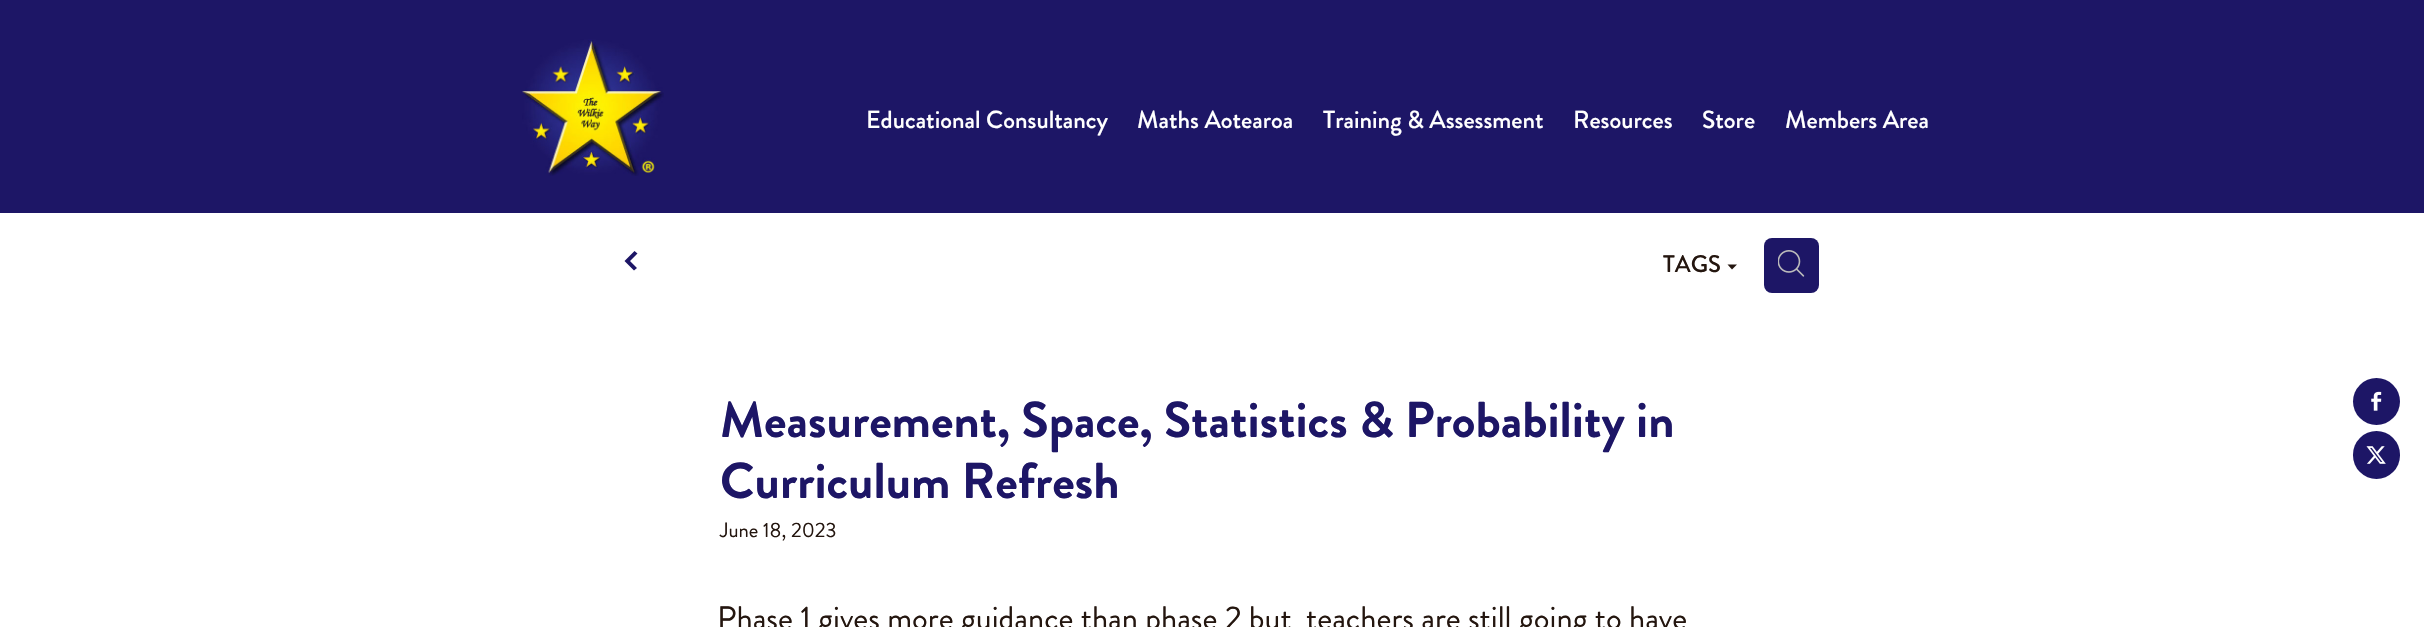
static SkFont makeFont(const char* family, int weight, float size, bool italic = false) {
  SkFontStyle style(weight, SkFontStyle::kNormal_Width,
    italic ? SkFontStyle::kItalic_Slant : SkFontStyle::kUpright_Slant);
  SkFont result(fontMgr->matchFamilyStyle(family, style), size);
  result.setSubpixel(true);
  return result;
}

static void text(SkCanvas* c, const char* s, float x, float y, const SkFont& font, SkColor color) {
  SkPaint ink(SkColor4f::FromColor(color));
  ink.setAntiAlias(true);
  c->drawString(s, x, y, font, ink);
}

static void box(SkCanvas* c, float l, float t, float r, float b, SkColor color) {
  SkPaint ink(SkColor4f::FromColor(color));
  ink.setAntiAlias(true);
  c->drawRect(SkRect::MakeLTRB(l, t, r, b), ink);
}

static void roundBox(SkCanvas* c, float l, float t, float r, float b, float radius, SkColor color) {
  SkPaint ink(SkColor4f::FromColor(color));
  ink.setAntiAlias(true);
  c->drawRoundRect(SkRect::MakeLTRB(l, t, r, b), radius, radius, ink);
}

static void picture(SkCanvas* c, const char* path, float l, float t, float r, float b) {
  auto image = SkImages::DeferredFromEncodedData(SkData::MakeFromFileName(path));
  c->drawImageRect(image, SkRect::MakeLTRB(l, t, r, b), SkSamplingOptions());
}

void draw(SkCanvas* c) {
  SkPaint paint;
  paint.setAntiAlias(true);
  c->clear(0xffffffff);
  box(c, 0, 0, 2424, 213, 0xff1d1666);
  picture(c, "img_01.png", 522, 39, 664, 176);
  SkFont face1 = makeFont("Brandon Grotesque", 500, 24.75f);
  text(c, "Educational Consultancy", 866, 128, face1, 0xffffffff);
  text(c, "Maths Aotearoa", 1137, 128, face1, 0xffffffff);
  text(c, "Training & Assessment", 1323, 128, face1, 0xffffffff);
  text(c, "Resources", 1573, 128, face1, 0xffffffff);
  text(c, "Store", 1702, 128, face1, 0xffffffff);
  text(c, "Members Area", 1785, 128, face1, 0xffffffff);
  paint.setColor(0xff1d1666);
  c->drawPath(SkPathBuilder().moveTo(634, 270.5f).lineTo(624.5f, 261).lineTo(634.5f, 251).lineTo(637.5f, 253.5f).lineTo(630, 261).lineTo(637, 268).close().detach(), paint);
  SkFont face2 = makeFont("Brandon Grotesque", 500, 24);
  text(c, "TAGS", 1663, 272, face2, 0xff24160f);
  paint.setColor(0xff24160f);
  c->drawPath(SkPathBuilder().moveTo(1732, 269.5f).lineTo(1727.5f, 264.5f).lineTo(1737, 264.5f).close().detach(), paint);
  roundBox(c, 1764, 238, 1819, 293, 8, 0xff1d1666);
  picture(c, "img_02.png", 1778, 250, 1805, 277);
  SkFont face3 = makeFont("Brandon Grotesque", 700, 50.5f);
  text(c, "Measurement, Space, Statistics & Probability in", 720, 437, face3, 0xff1d1666);
  text(c, "Curriculum Refresh", 720, 498, face3, 0xff1d1666);
  SkFont face4 = makeFont("Brandon Grotesque", 400, 20.75f);
  text(c, "June 18, 2023", 720, 537, face4, 0xff24160f);
  SkFont face5 = makeFont("Brandon Grotesque", 400, 32.65f);
  text(c, "Phase 1 gives more guidance than phase 2 but  teachers are still going to have", 717, 629, face5, 0xff24160f);
  paint.setColor(0xff1d1666);
  c->drawCircle(2376.5f, 401.5f, 23.5f, paint);
  picture(c, "img_03.png", 2371, 391, 2382, 411);
  roundBox(c, 2353, 431, 2400, 479, 23.5f, 0xff1d1666);
  picture(c, "img_04.png", 2366, 446, 2386, 464);
}
